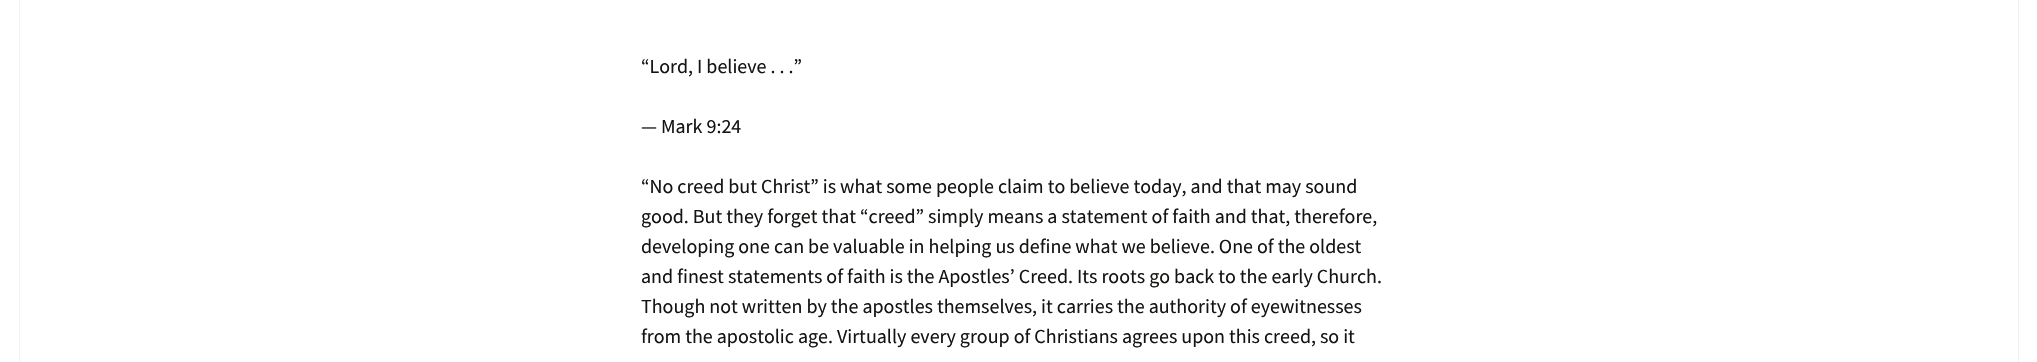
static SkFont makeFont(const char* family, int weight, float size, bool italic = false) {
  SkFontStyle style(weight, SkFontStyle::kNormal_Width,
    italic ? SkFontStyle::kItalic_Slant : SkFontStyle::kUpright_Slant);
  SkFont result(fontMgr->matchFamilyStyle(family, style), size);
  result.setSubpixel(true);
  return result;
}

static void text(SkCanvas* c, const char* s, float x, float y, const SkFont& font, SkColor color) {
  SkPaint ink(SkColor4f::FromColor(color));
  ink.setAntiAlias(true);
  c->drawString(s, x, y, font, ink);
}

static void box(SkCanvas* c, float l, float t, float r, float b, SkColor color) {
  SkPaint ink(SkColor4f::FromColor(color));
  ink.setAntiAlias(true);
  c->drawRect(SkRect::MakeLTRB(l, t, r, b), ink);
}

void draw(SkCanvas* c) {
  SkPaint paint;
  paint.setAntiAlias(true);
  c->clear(0xffffffff);
  box(c, 2018, 0, 2019, 362, 0xfff2f2f2);
  box(c, 19, 0, 20, 362, 0xfff2f2f2);
  SkFont face1 = makeFont("Source Sans Pro", 400, 20);
  text(c, "“Lord, I believe . . .”", 641, 73, face1, 0xff141412);
  text(c, "— Mark 9:24", 641, 133, face1, 0xff141412);
  text(c, "“No creed but Christ” is what some people claim to believe today, and that may sound", 641, 193, face1, 0xff141412);
  text(c, "good. But they forget that “creed” simply means a statement of faith and that, therefore,", 641, 223, face1, 0xff141412);
  text(c, "developing one can be valuable in helping us define what we believe. One of the oldest", 641, 253, face1, 0xff141412);
  text(c, "and finest statements of faith is the Apostles’ Creed. Its roots go back to the early Church.", 641, 283, face1, 0xff141412);
  text(c, "Though not written by the apostles themselves, it carries the authority of eyewitnesses", 641, 313, face1, 0xff141412);
  text(c, "from the apostolic age. Virtually every group of Christians agrees upon this creed, so it", 641, 343, face1, 0xff141412);
}
